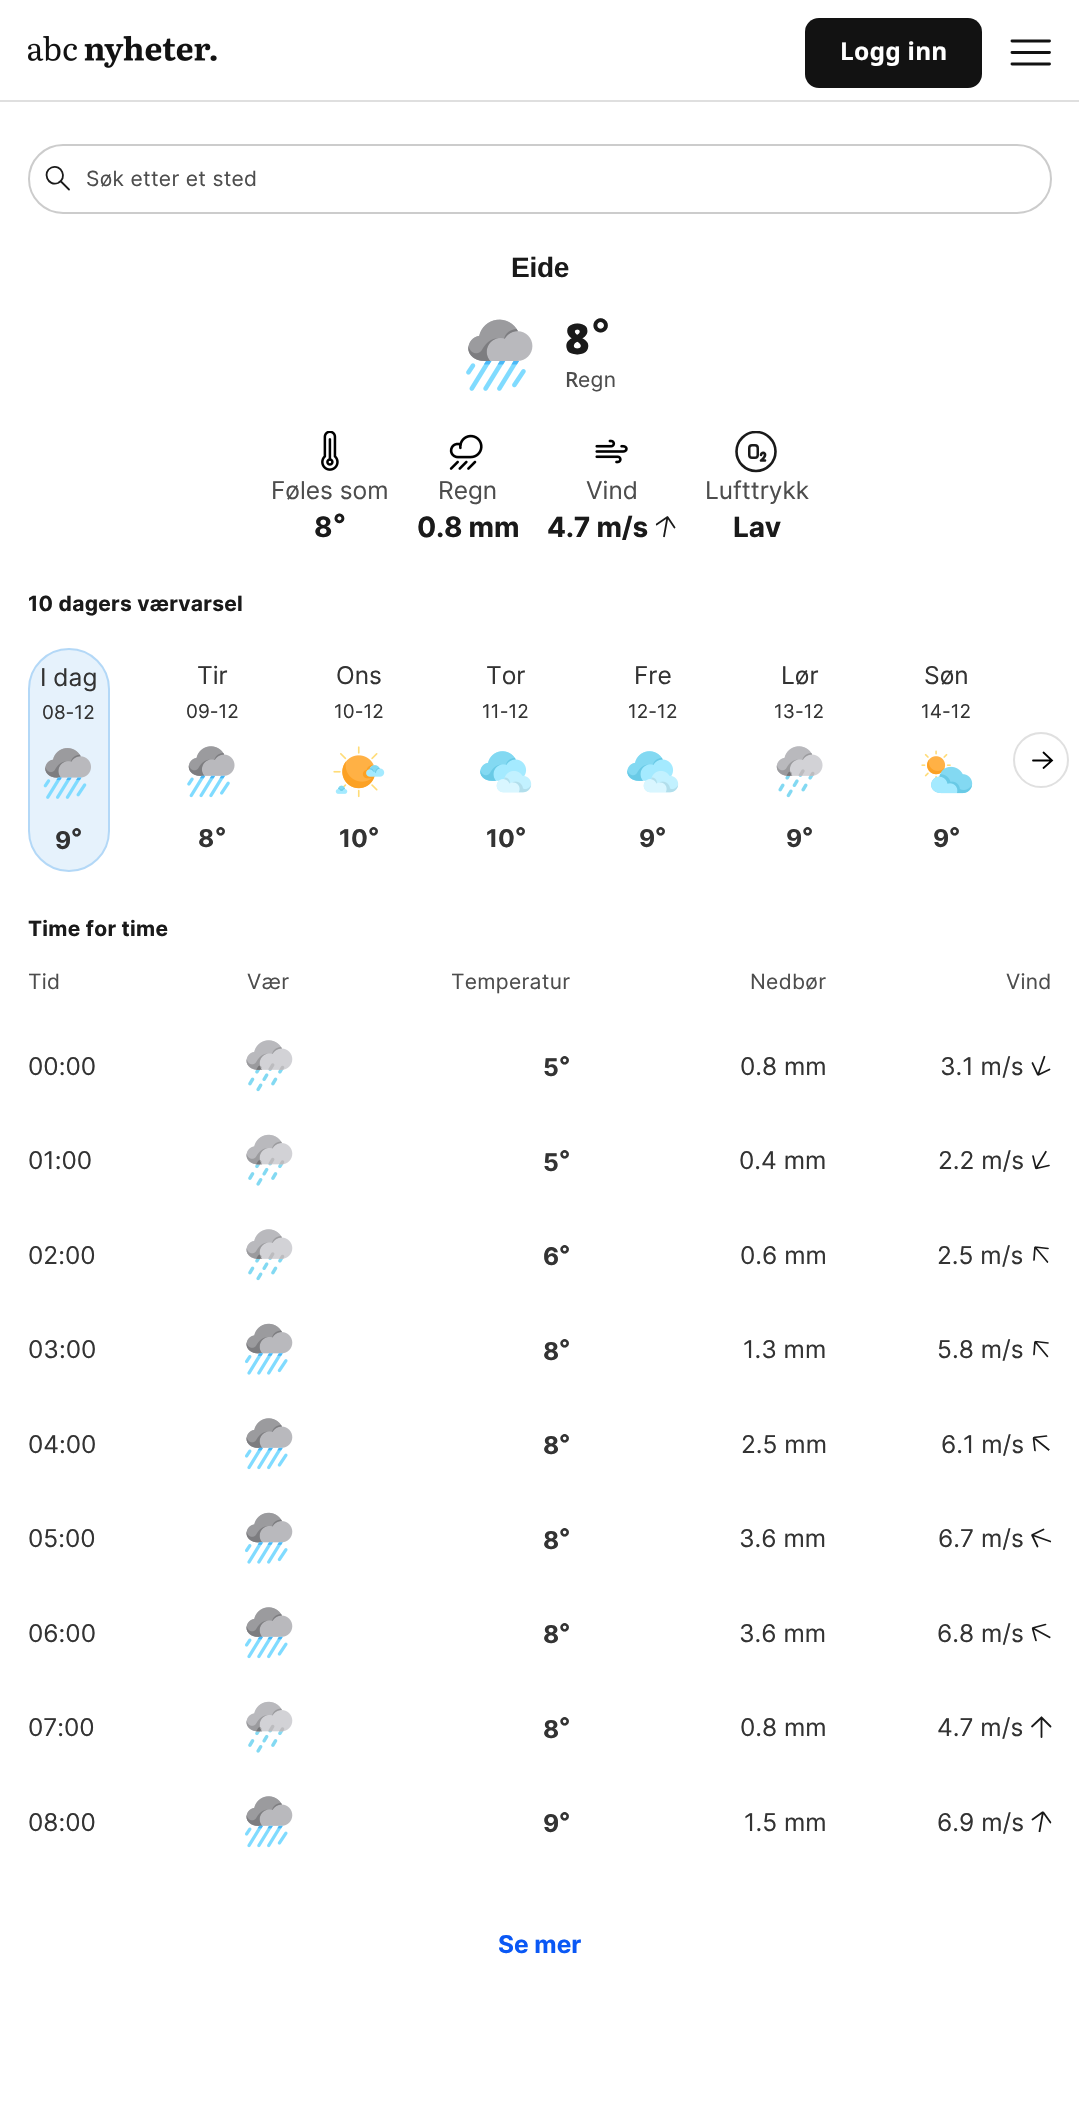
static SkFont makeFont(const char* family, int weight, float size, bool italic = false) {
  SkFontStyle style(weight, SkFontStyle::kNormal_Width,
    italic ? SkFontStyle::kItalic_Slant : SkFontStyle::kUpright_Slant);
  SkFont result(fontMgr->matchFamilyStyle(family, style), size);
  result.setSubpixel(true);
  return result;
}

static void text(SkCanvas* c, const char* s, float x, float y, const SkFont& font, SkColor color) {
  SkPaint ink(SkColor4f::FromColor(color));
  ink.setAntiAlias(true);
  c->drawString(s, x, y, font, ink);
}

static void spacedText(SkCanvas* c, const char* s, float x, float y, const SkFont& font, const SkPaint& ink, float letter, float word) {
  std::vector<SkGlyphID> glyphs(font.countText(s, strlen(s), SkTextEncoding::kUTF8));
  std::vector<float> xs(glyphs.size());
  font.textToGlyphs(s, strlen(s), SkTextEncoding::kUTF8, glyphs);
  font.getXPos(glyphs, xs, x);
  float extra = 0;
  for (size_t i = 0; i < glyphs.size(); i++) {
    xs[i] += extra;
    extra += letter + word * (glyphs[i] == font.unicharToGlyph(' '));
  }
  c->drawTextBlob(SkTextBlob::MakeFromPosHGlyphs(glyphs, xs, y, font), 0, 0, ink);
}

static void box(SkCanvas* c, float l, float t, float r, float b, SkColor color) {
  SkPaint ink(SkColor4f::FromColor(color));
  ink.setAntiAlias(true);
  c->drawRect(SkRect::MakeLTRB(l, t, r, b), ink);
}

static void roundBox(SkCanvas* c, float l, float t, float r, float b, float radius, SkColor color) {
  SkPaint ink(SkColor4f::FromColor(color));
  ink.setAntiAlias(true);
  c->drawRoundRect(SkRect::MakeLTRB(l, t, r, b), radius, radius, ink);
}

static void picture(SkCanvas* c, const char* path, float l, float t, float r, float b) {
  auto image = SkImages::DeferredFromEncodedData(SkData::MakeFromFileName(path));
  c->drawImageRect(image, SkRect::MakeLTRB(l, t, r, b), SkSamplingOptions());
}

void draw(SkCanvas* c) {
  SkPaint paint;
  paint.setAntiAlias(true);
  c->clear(0xffffffff);
  box(c, 0, 100, 1079, 102, 0xffdfdfdf);
  picture(c, "img_01.png", 28, 35, 217, 68);
  roundBox(c, 805, 18, 982, 88, 14, 0xff121212);
  SkFont face1 = makeFont("Noto Sans", 700, 24.5f);
  paint.setColor(0xffffffff);
  spacedText(c, "Logg inn", 840, 60, face1, paint, 0.25f, 0);
  paint.setStyle(SkPaint::kStroke_Style);
  paint.setStrokeWidth(2.9f);
  paint.setStrokeCap(SkPaint::kRound_Cap);
  paint.setStrokeJoin(SkPaint::kRound_Join);
  paint.setColor(0xff121212);
  c->drawPath(SkPathBuilder().moveTo(1012, 64).lineTo(1049.5f, 64).moveTo(1012, 52.5f).lineTo(1049.5f, 52.5f).moveTo(1012, 41).lineTo(1049.5f, 41).detach(), paint);
  paint.setStrokeWidth(2);
  paint.setStrokeCap(SkPaint::kButt_Cap);
  paint.setStrokeJoin(SkPaint::kMiter_Join);
  paint.setColor(0xffcccccc);
  c->drawRoundRect(SkRect::MakeLTRB(29, 145, 1051, 213), 34, 34, paint);
  paint.setStrokeWidth(1.8f);
  paint.setStrokeCap(SkPaint::kRound_Cap);
  paint.setStrokeJoin(SkPaint::kRound_Join);
  paint.setColor(0xff1a1a1a);
  c->drawPath(SkPathBuilder().moveTo(51.5f, 167.5f).cubicTo(61.5f, 163.5f, 68, 178.5f, 58, 183).cubicTo(48, 187, 41.5f, 172, 51.5f, 167.5f).close().moveTo(61.5f, 182).lineTo(69, 189.5f).detach(), paint);
  SkFont face2 = makeFont("Inter", 400, 21);
  paint.setStyle(SkPaint::kFill_Style);
  paint.setColor(0xff4d4d4d);
  spacedText(c, "Søk etter et sted", 86, 186, face2, paint, 0.3f, 0);
  SkFont face3 = makeFont("Liberation Sans", 700, 28);
  paint.setColor(0xff1a1a1a);
  spacedText(c, "Eide", 511, 277, face3, paint, -0.25f, 0);
  picture(c, "img_02.png", 466, 319, 533, 391);
  SkFont face4 = makeFont("Noto Sans", 900, 42);
  text(c, "8", 565, 354, face4, 0xff1a1a1a);
  SkFont face5 = makeFont("Inter", 600, 42);
  text(c, "°", 591, 349, face5, 0xff1a1a1a);
  SkFont face6 = makeFont("Noto Sans", 500, 21);
  paint.setColor(0xff4d4d4d);
  spacedText(c, "R", 565, 387, face6, paint, 0.3f, 0);
  spacedText(c, "egn", 578, 387, face2, paint, 0.3f, 0);
  picture(c, "img_03.png", 321, 431, 339, 471);
  SkFont face7 = makeFont("Inter", 400, 24.5f);
  text(c, "Føles som", 271, 499, face7, 0xff4d4d4d);
  SkFont face8 = makeFont("Inter", 700, 28);
  paint.setColor(0xff1a1a1a);
  spacedText(c, "8", 314, 537, face8, paint, -0.25f, 0);
  spacedText(c, "°", 333, 534, face8, paint, -0.25f, 0);
  picture(c, "img_04.png", 449, 434, 483, 470);
  text(c, "Regn", 438, 499, face7, 0xff4d4d4d);
  spacedText(c, "0.8 mm", 417, 537, face8, paint, -0.25f, 0);
  picture(c, "img_05.png", 595, 439, 628, 464);
  text(c, "Vind", 586, 499, face7, 0xff4d4d4d);
  spacedText(c, "4.7 m/s", 547, 537, face8, paint, -0.25f, 0);
  c->save();
  c->clipPath(SkPathBuilder().moveTo(674.5f, 539).lineTo(654, 535.5f).lineTo(657.5f, 514.5f).lineTo(678.5f, 518).close().detach(), true);
  paint.setStyle(SkPaint::kStroke_Style);
  c->drawPath(SkPathBuilder().moveTo(664, 536.5f).lineTo(667.5f, 517).moveTo(674.5f, 527.5f).lineTo(667.5f, 517).lineTo(656.5f, 524.5f).detach(), paint);
  c->restore();
  c->save();
  c->clipRect(SkRect::MakeLTRB(735, 431, 777, 473));
  paint.setStrokeWidth(2.6f);
  paint.setStrokeCap(SkPaint::kButt_Cap);
  paint.setStrokeJoin(SkPaint::kMiter_Join);
  c->drawCircle(756, 451.5f, 19.5f, paint);
  c->restore();
  paint.setStrokeWidth(2.5f);
  c->drawRoundRect(SkRect::MakeLTRB(749.25f, 445.25f, 757.75f, 457.75f), 2.75f, 2.75f, paint);
  paint.setStrokeWidth(2.6f);
  paint.setStrokeCap(SkPaint::kRound_Cap);
  paint.setStrokeJoin(SkPaint::kRound_Join);
  c->drawPath(SkPathBuilder().moveTo(761, 455).cubicTo(761, 453, 763.5f, 452, 764.5f, 453.5f).cubicTo(766.5f, 455.5f, 762.5f, 459.5f, 761, 460.5f).lineTo(765, 460.5f).detach(), paint);
  text(c, "Lufttrykk", 705, 499, face7, 0xff4d4d4d);
  paint.setStyle(SkPaint::kFill_Style);
  spacedText(c, "Lav", 733, 537, face8, paint, -0.25f, 0);
  SkFont face9 = makeFont("Inter", 700, 21);
  spacedText(c, "10 dagers værvarsel", 28, 611, face9, paint, 0.3f, 0);
  paint.setColor(0xffe6f2fc);
  c->drawRoundRect(SkRect::MakeLTRB(29, 649, 109, 871), 40, 40, paint);
  paint.setStyle(SkPaint::kStroke_Style);
  paint.setStrokeWidth(2);
  paint.setStrokeCap(SkPaint::kButt_Cap);
  paint.setStrokeJoin(SkPaint::kMiter_Join);
  paint.setColor(0xffb3d8f7);
  c->drawRoundRect(SkRect::MakeLTRB(29, 649, 109, 871), 40, 40, paint);
  text(c, "I dag", 40, 686, face7, 0xff333333);
  SkFont face10 = makeFont("Inter", 400, 19);
  text(c, "08-12", 42, 719, face10, 0xff333333);
  picture(c, "img_06.png", 43, 748, 91, 799);
  SkFont face11 = makeFont("Inter", 700, 24.5f);
  text(c, "9", 55, 849, face11, 0xff333333);
  text(c, "°", 71, 846, face11, 0xff333333);
  text(c, "Tir", 197, 684, face7, 0xff333333);
  text(c, "09-12", 186, 718, face10, 0xff333333);
  picture(c, "img_07.png", 187, 746, 235, 798);
  text(c, "8", 198, 847, face11, 0xff333333);
  text(c, "°", 215, 845, face11, 0xff333333);
  text(c, "Ons", 336, 684, face7, 0xff333333);
  text(c, "10-12", 334, 718, face10, 0xff333333);
  picture(c, "img_08.png", 333, 746, 385, 798);
  text(c, "10", 339, 847, face11, 0xff333333);
  text(c, "°", 368, 845, face11, 0xff333333);
  text(c, "Tor", 486, 684, face7, 0xff333333);
  text(c, "11-12", 482, 718, face10, 0xff333333);
  picture(c, "img_09.png", 480, 751, 532, 793);
  text(c, "10", 486, 847, face11, 0xff333333);
  text(c, "°", 515, 845, face11, 0xff333333);
  text(c, "Fre", 634, 684, face7, 0xff333333);
  text(c, "12-12", 628, 718, face10, 0xff333333);
  picture(c, "img_09.png", 627, 751, 679, 793);
  text(c, "9", 639, 847, face11, 0xff333333);
  text(c, "°", 655, 845, face11, 0xff333333);
  text(c, "Lør", 781, 684, face7, 0xff333333);
  text(c, "13-12", 774, 718, face10, 0xff333333);
  picture(c, "img_10.png", 776, 746, 823, 798);
  text(c, "9", 786, 847, face11, 0xff333333);
  text(c, "°", 802, 845, face11, 0xff333333);
  text(c, "Søn", 924, 684, face7, 0xff333333);
  text(c, "14-12", 921, 718, face10, 0xff333333);
  picture(c, "img_11.png", 921, 750, 973, 794);
  text(c, "9", 933, 847, face11, 0xff333333);
  text(c, "°", 949, 845, face11, 0xff333333);
  paint.setColor(0xffe0e0e0);
  c->drawCircle(1041, 760, 27, paint);
  paint.setStrokeWidth(1.8f);
  paint.setStrokeCap(SkPaint::kRound_Cap);
  paint.setColor(0xff000000);
  c->drawPath(SkPathBuilder().moveTo(1033, 760.5f).lineTo(1051, 760.5f).moveTo(1043.5f, 752.5f).lineTo(1052, 760.5f).lineTo(1043.5f, 768).detach(), paint);
  paint.setStyle(SkPaint::kFill_Style);
  paint.setColor(0xff1a1a1a);
  spacedText(c, "Time for time", 28, 936, face9, paint, 0.3f, 0);
  paint.setColor(0xff4d4d4d);
  spacedText(c, "Tid", 28, 989, face2, paint, 0.3f, 0);
  spacedText(c, "Vær", 247, 989, face2, paint, 0.3f, 0);
  spacedText(c, "Temperatur", 451, 989, face2, paint, 0.3f, 0);
  spacedText(c, "Nedbør", 750, 989, face2, paint, 0.3f, 0);
  spacedText(c, "Vind", 1006, 989, face2, paint, 0.3f, 0);
  text(c, "00:00", 28, 1075, face7, 0xff333333);
  picture(c, "img_12.png", 246, 1040, 293, 1092);
  text(c, "5", 543, 1076, face11, 0xff333333);
  text(c, "°", 559, 1074, face11, 0xff333333);
  text(c, "0.8 mm", 740, 1075, face7, 0xff333333);
  text(c, "3.1 m/s", 940, 1075, face7, 0xff333333);
  c->save();
  c->clipPath(SkPathBuilder().moveTo(1035, 1052.5f).lineTo(1054.5f, 1059.5f).lineTo(1047.5f, 1079).lineTo(1027.5f, 1072).close().detach(), true);
  paint.setStyle(SkPaint::kStroke_Style);
  paint.setStrokeJoin(SkPaint::kRound_Join);
  paint.setColor(0xff1a1a1a);
  c->drawPath(SkPathBuilder().moveTo(1044.5f, 1056.5f).lineTo(1038, 1075).moveTo(1032.5f, 1063).lineTo(1038, 1075).lineTo(1049.5f, 1069.5f).detach(), paint);
  c->restore();
  text(c, "01:00", 28, 1169, face7, 0xff333333);
  picture(c, "img_13.png", 246, 1134, 293, 1186);
  text(c, "5", 543, 1171, face11, 0xff333333);
  text(c, "°", 559, 1168, face11, 0xff333333);
  text(c, "0.4 mm", 739, 1169, face7, 0xff333333);
  text(c, "2.2 m/s", 938, 1169, face7, 0xff333333);
  c->save();
  c->clipPath(SkPathBuilder().moveTo(1037.5f, 1146).lineTo(1055.5f, 1156.5f).lineTo(1045, 1174.5f).lineTo(1027, 1164).close().detach(), true);
  paint.setStrokeWidth(1.7f);
  c->drawPath(SkPathBuilder().moveTo(1046, 1151.5f).lineTo(1036, 1168.5f).moveTo(1033, 1156).lineTo(1036, 1168.5f).lineTo(1049, 1165.5f).detach(), paint);
  c->restore();
  text(c, "02:00", 28, 1264, face7, 0xff333333);
  picture(c, "img_12.png", 246, 1229, 293, 1281);
  text(c, "6", 543, 1265, face11, 0xff333333);
  text(c, "°", 559, 1263, face11, 0xff333333);
  text(c, "0.6 mm", 740, 1264, face7, 0xff333333);
  text(c, "2.5 m/s", 937, 1264, face7, 0xff333333);
  c->save();
  c->clipPath(SkPathBuilder().moveTo(1056, 1256).lineTo(1040, 1269.5f).lineTo(1026.5f, 1253.5f).lineTo(1042.5f, 1240).close().detach(), true);
  c->drawPath(SkPathBuilder().moveTo(1047.5f, 1262).lineTo(1035, 1247).moveTo(1048, 1248.5f).lineTo(1035, 1247).lineTo(1034, 1260).detach(), paint);
  c->restore();
  text(c, "03:00", 28, 1358, face7, 0xff333333);
  picture(c, "img_14.png", 245, 1323, 293, 1375);
  text(c, "8", 543, 1360, face11, 0xff333333);
  text(c, "°", 559, 1357, face11, 0xff333333);
  text(c, "1.3 mm", 743, 1358, face7, 0xff333333);
  text(c, "5.8 m/s", 937, 1358, face7, 0xff333333);
  c->save();
  c->clipPath(SkPathBuilder().moveTo(1056, 1350.5f).lineTo(1040, 1364).lineTo(1026.5f, 1348).lineTo(1042.5f, 1334.5f).close().detach(), true);
  c->clipPath(SkPathBuilder().moveTo(1056, 1350.5f).lineTo(1040, 1364).lineTo(1026.5f, 1348).lineTo(1042.5f, 1334.5f).close().detach(), true);
  c->drawPath(SkPathBuilder().moveTo(1047.5f, 1356.5f).lineTo(1035, 1341.5f).moveTo(1048, 1343).lineTo(1035, 1341.5f).lineTo(1034, 1354.5f).detach(), paint);
  c->restore();
  text(c, "04:00", 28, 1453, face7, 0xff333333);
  picture(c, "img_15.png", 245, 1418, 293, 1470);
  text(c, "8", 543, 1454, face11, 0xff333333);
  text(c, "°", 559, 1452, face11, 0xff333333);
  text(c, "2.5 mm", 741, 1453, face7, 0xff333333);
  text(c, "6.1 m/s", 941, 1453, face7, 0xff333333);
  c->save();
  c->clipPath(SkPathBuilder().moveTo(1056, 1442.5f).lineTo(1042.5f, 1458.5f).lineTo(1026.5f, 1445).lineTo(1040, 1429).close().detach(), true);
  c->clipPath(SkPathBuilder().moveTo(1056, 1442.5f).lineTo(1042.5f, 1458.5f).lineTo(1026.5f, 1445).lineTo(1040, 1429).close().detach(), true);
  c->drawPath(SkPathBuilder().moveTo(1049, 1450).lineTo(1033.5f, 1437.5f).moveTo(1046.5f, 1436).lineTo(1033.5f, 1437.5f).lineTo(1035, 1450.5f).detach(), paint);
  c->restore();
  text(c, "05:00", 28, 1547, face7, 0xff333333);
  picture(c, "img_14.png", 245, 1512, 293, 1564);
  text(c, "8", 543, 1549, face11, 0xff333333);
  text(c, "°", 559, 1546, face11, 0xff333333);
  text(c, "3.6 mm", 739, 1547, face7, 0xff333333);
  text(c, "6.7 m/s", 938, 1547, face7, 0xff333333);
  c->save();
  c->clipPath(SkPathBuilder().moveTo(1054.5f, 1532).lineTo(1047.5f, 1551.5f).lineTo(1027.5f, 1544.5f).lineTo(1035, 1525).close().detach(), true);
  paint.setStrokeWidth(1.8f);
  c->drawPath(SkPathBuilder().moveTo(1050.5f, 1541.5f).lineTo(1032, 1535).moveTo(1043.5f, 1529.5f).lineTo(1032, 1535).lineTo(1037.5f, 1546.5f).detach(), paint);
  c->restore();
  text(c, "06:00", 28, 1642, face7, 0xff333333);
  picture(c, "img_15.png", 245, 1607, 293, 1659);
  text(c, "8", 543, 1643, face11, 0xff333333);
  text(c, "°", 559, 1641, face11, 0xff333333);
  text(c, "3.6 mm", 739, 1642, face7, 0xff333333);
  text(c, "6.8 m/s", 937, 1642, face7, 0xff333333);
  c->save();
  c->clipPath(SkPathBuilder().moveTo(1055.5f, 1629).lineTo(1045, 1647).lineTo(1027, 1636.5f).lineTo(1037.5f, 1618.5f).close().detach(), true);
  paint.setStrokeWidth(1.7f);
  c->drawPath(SkPathBuilder().moveTo(1050, 1637.5f).lineTo(1032.5f, 1628).moveTo(1045.5f, 1624.5f).lineTo(1032.5f, 1628).lineTo(1036, 1640.5f).detach(), paint);
  c->restore();
  text(c, "07:00", 28, 1736, face7, 0xff333333);
  picture(c, "img_13.png", 246, 1701, 293, 1753);
  text(c, "8", 543, 1738, face11, 0xff333333);
  text(c, "°", 559, 1735, face11, 0xff333333);
  text(c, "0.8 mm", 740, 1736, face7, 0xff333333);
  text(c, "4.7 m/s", 937, 1736, face7, 0xff333333);
  paint.setStrokeWidth(1.8f);
  c->drawPath(SkPathBuilder().moveTo(1041.5f, 1737).lineTo(1041.5f, 1717.5f).moveTo(1050.5f, 1726.5f).lineTo(1041.5f, 1717.5f).lineTo(1032, 1726.5f).detach(), paint);
  text(c, "08:00", 28, 1831, face7, 0xff333333);
  picture(c, "img_15.png", 245, 1796, 293, 1848);
  text(c, "9", 543, 1832, face11, 0xff333333);
  text(c, "°", 559, 1830, face11, 0xff333333);
  text(c, "1.5 mm", 744, 1831, face7, 0xff333333);
  text(c, "6.9 m/s", 937, 1831, face7, 0xff333333);
  c->save();
  c->clipPath(SkPathBuilder().moveTo(1049.5f, 1834).lineTo(1029, 1830.5f).lineTo(1032.5f, 1809.5f).lineTo(1053.5f, 1813).close().detach(), true);
  c->clipPath(SkPathBuilder().moveTo(1049.5f, 1834).lineTo(1029, 1830.5f).lineTo(1032.5f, 1809.5f).lineTo(1053.5f, 1813).close().detach(), true);
  c->drawPath(SkPathBuilder().moveTo(1039.5f, 1831.5f).lineTo(1043, 1812).moveTo(1050.5f, 1822.5f).lineTo(1043, 1812).lineTo(1032.5f, 1819.5f).detach(), paint);
  c->restore();
  text(c, "Se mer", 498, 1953, face11, 0xff0a58f5);
}
